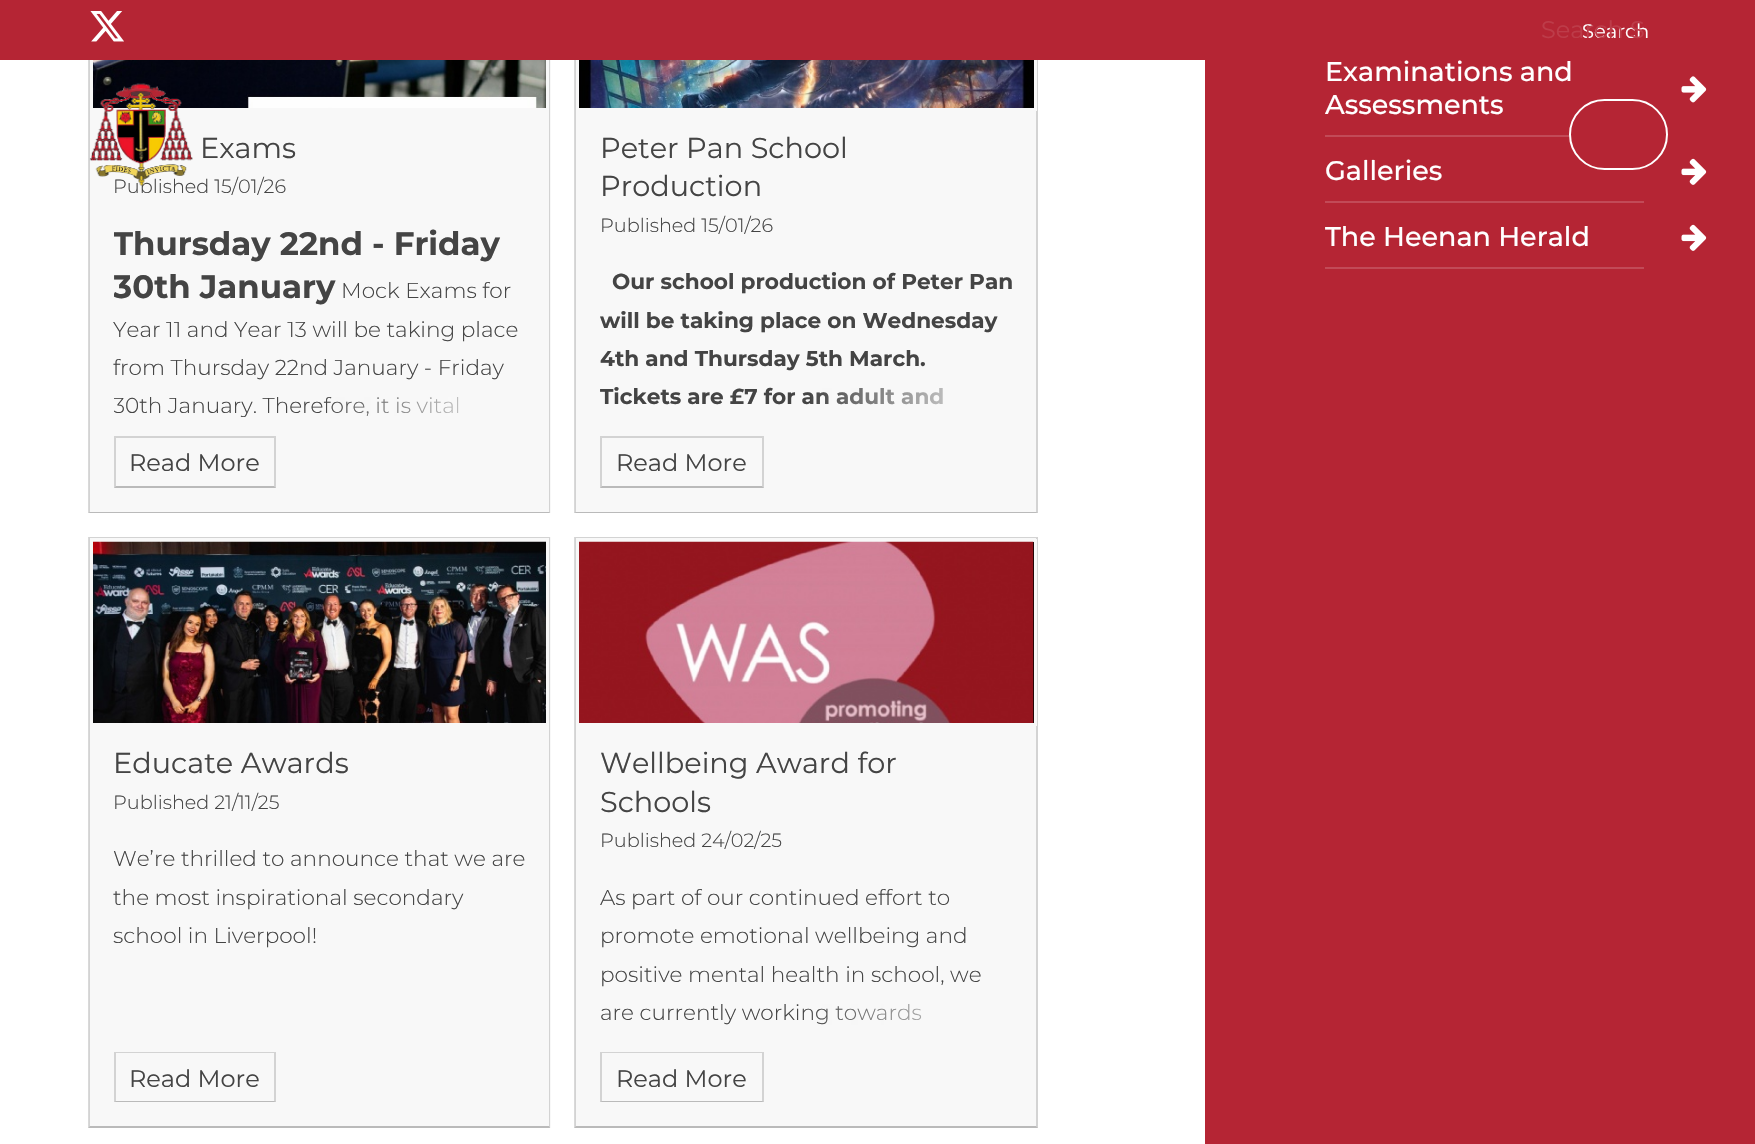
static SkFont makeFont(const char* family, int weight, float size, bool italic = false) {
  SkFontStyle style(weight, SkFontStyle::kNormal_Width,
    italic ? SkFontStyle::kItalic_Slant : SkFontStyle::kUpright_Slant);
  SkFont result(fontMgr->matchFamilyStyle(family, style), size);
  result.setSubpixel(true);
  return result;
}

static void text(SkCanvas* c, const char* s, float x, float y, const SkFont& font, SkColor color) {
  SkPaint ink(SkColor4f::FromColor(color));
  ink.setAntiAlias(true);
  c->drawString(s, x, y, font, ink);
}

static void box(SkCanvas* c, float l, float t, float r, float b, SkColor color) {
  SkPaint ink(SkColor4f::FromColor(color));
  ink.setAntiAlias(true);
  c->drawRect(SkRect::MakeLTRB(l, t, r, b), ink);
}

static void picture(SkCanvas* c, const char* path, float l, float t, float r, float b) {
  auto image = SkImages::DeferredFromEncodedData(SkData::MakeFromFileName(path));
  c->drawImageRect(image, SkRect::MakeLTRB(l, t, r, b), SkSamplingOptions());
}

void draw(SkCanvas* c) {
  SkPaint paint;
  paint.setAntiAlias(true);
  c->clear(0xffffffff);
  box(c, 89, 60, 551, 513, 0xfff8f8f8);
  paint.setColor(0xffd3d3d3);
  c->drawPath(SkPathBuilder().moveTo(550, -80).lineTo(550, 513).lineTo(549, 512).lineTo(549, -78).close().detach(), paint);
  paint.setColor(0x40000000);
  c->drawPath(SkPathBuilder().moveTo(550, 513).lineTo(88, 513).lineTo(90, 512).lineTo(549, 512).close().detach(), paint);
  paint.setColor(0x26000000);
  c->drawPath(SkPathBuilder().moveTo(88, 513).lineTo(88, -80).lineTo(90, -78).lineTo(90, 512).close().detach(), paint);
  box(c, 575, 60, 1038, 513, 0xfff8f8f8);
  paint.setColor(0xffd3d3d3);
  c->drawPath(SkPathBuilder().moveTo(1038, -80).lineTo(1038, 513).lineTo(1036, 512).lineTo(1036, -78).close().detach(), paint);
  paint.setColor(0x40000000);
  c->drawPath(SkPathBuilder().moveTo(1038, 513).lineTo(574, 513).lineTo(576, 512).lineTo(1036, 512).close().detach(), paint);
  paint.setColor(0x26000000);
  c->drawPath(SkPathBuilder().moveTo(574, 513).lineTo(574, -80).lineTo(576, -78).lineTo(576, 512).close().detach(), paint);
  paint.setStyle(SkPaint::kStroke_Style);
  paint.setStrokeWidth(3);
  paint.setColor(0xfff8f8f8);
  c->drawRect(SkRect::MakeLTRB(577.5f, -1.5f, 1035.5f, 109.5f), paint);
  box(c, 0, 0, 1755, 60, 0xffb52534);
  picture(c, "img_01.png", 90, 11, 124, 42);
  SkFont face1 = makeFont("Montserrat", 400, 19.5f);
  text(c, "Search", 1582, 38, face1, 0xffffffff);
  SkFont face2 = makeFont("Montserrat", 400, 24);
  text(c, "Search S", 1541, 38, face2, 0xffbd3c49);
  picture(c, "img_03.png", 93, 60, 546, 108);
  SkFont face3 = makeFont("Montserrat", 300, 19.25f);
  text(c, "Published 15/01/26", 113, 193, face3, 0xff444444);
  picture(c, "img_02.png", 89, 83, 193, 186);
  box(c, 1205, 60, 1755, 1144, 0xffb52534);
  box(c, 1325, 135, 1570, 137, 0xffc24a57);
  paint.setStyle(SkPaint::kFill_Style);
  paint.setColor(0xffb52534);
  c->drawRoundRect(SkRect::MakeLTRB(1570, 100, 1667, 169), 34.5f, 34.5f, paint);
  paint.setStyle(SkPaint::kStroke_Style);
  paint.setStrokeWidth(2);
  paint.setColor(0xffffffff);
  c->drawRoundRect(SkRect::MakeLTRB(1570, 100, 1667, 169), 34.5f, 34.5f, paint);
  SkFont face4 = makeFont("Montserrat", 400, 28.75f);
  text(c, "Exams", 200, 158, face4, 0xff444444);
  c->save();
  c->clipRect(SkRect::MakeLTRB(114, 111, 525, 417));
  SkFont face5 = makeFont("Montserrat", 700, 32.4f);
  text(c, "Thursday 22nd - Friday", 113, 255, face5, 0xff444444);
  text(c, "30th January", 113, 298, face5, 0xff444444);
  c->restore();
  SkFont face6 = makeFont("Montserrat", 300, 21.6f);
  text(c, "Mock Exams for", 341, 298, face6, 0xff444444);
  text(c, "Year 11 and Year 13 will be taking place", 113, 337, face6, 0xff444444);
  text(c, "from Thursday 22nd January - Friday", 113, 375, face6, 0xff444444);
  c->save();
  c->clipRect(SkRect::MakeLTRB(114, 111, 525, 417));
  text(c, "30th January. Therefore, it is vital", 113, 413, face6, 0xff444444);
  c->restore();
  paint.setStyle(SkPaint::kFill_Style);
  {
    const SkColor colors[] = {0x00f8f8f8, 0xfff8f8f8};
    const float stops[] = {0, 1};
    const SkPoint ends[] = {{320, 398}, {525, 398}};
    paint.setShader(SkGradientShader::MakeLinear(ends, colors, stops, 2, SkTileMode::kClamp));
    paint.setAlpha(255);
  }
  c->drawRect(SkRect::MakeLTRB(325, 397, 459, 416), paint);
  paint.setShader(nullptr);
  paint.setColor(0xffd3d3d3);
  c->drawPath(SkPathBuilder().moveTo(114, 436).lineTo(276, 436).lineTo(274, 438).lineTo(116, 438).close().detach(), paint);
  paint.setColor(0x26000000);
  c->drawPath(SkPathBuilder().moveTo(276, 436).lineTo(276, 488).lineTo(274, 486).lineTo(274, 438).close().detach(), paint);
  paint.setColor(0x40000000);
  c->drawPath(SkPathBuilder().moveTo(276, 488).lineTo(114, 488).lineTo(116, 486).lineTo(274, 486).close().detach(), paint);
  paint.setColor(0x26000000);
  c->drawPath(SkPathBuilder().moveTo(114, 488).lineTo(114, 436).lineTo(116, 438).lineTo(116, 486).close().detach(), paint);
  text(c, "Read More", 129, 471, face2, 0xff444444);
  box(c, 1030, 60, 1034, 108, 0xff000000);
  picture(c, "img_04.png", 579, 60, 1030, 108);
  text(c, "Peter Pan School", 600, 158, face4, 0xff444444);
  text(c, "Production", 600, 196, face4, 0xff444444);
  text(c, "Published 15/01/26", 600, 232, face3, 0xff444444);
  SkFont face7 = makeFont("Montserrat", 700, 21.6f);
  text(c, "Our school production of Peter Pan", 612, 289, face7, 0xff444444);
  text(c, "will be taking place on Wednesday", 600, 328, face7, 0xff444444);
  text(c, "4th and Thursday 5th March.", 600, 366, face7, 0xff444444);
  text(c, "Tickets are £7 for an adult and", 600, 404, face7, 0xff444444);
  {
    const SkColor colors[] = {0x00f8f8f8, 0xfff8f8f8};
    const float stops[] = {0, 1};
    const SkPoint ends[] = {{807, 398}, {1013, 398}};
    paint.setShader(SkGradientShader::MakeLinear(ends, colors, stops, 2, SkTileMode::kClamp));
    paint.setAlpha(255);
  }
  c->drawRect(SkRect::MakeLTRB(811, 388, 944, 405), paint);
  paint.setShader(nullptr);
  paint.setColor(0xffd3d3d3);
  c->drawPath(SkPathBuilder().moveTo(600, 436).lineTo(764, 436).lineTo(762, 438).lineTo(602, 438).close().detach(), paint);
  paint.setColor(0x26000000);
  c->drawPath(SkPathBuilder().moveTo(764, 436).lineTo(764, 488).lineTo(762, 486).lineTo(762, 438).close().detach(), paint);
  paint.setColor(0x40000000);
  c->drawPath(SkPathBuilder().moveTo(764, 488).lineTo(600, 488).lineTo(602, 486).lineTo(762, 486).close().detach(), paint);
  paint.setColor(0x26000000);
  c->drawPath(SkPathBuilder().moveTo(600, 488).lineTo(600, 436).lineTo(602, 438).lineTo(602, 486).close().detach(), paint);
  text(c, "Read More", 616, 471, face2, 0xff444444);
  box(c, 89, 537, 551, 1128, 0xfff8f8f8);
  paint.setColor(0xffd3d3d3);
  c->drawPath(SkPathBuilder().moveTo(88, 537).lineTo(550, 537).lineTo(549, 538).lineTo(90, 538).close().detach(), paint);
  paint.setColor(0x26000000);
  c->drawPath(SkPathBuilder().moveTo(550, 537).lineTo(550, 1128).lineTo(549, 1126).lineTo(549, 538).close().detach(), paint);
  paint.setColor(0x40000000);
  c->drawPath(SkPathBuilder().moveTo(550, 1128).lineTo(88, 1128).lineTo(90, 1126).lineTo(549, 1126).close().detach(), paint);
  paint.setColor(0x26000000);
  c->drawPath(SkPathBuilder().moveTo(88, 1128).lineTo(88, 537).lineTo(90, 538).lineTo(90, 1126).close().detach(), paint);
  picture(c, "img_05.png", 93, 541, 546, 723);
  text(c, "Educate Awards", 113, 773, face4, 0xff444444);
  text(c, "Published 21/11/25", 113, 809, face3, 0xff444444);
  text(c, "We’re thrilled to announce that we are", 113, 866, face6, 0xff444444);
  text(c, "the most inspirational secondary", 113, 905, face6, 0xff444444);
  text(c, "school in Liverpool!", 113, 943, face6, 0xff444444);
  paint.setColor(0xffd3d3d3);
  c->drawPath(SkPathBuilder().moveTo(114, 1052).lineTo(276, 1052).lineTo(274, 1053).lineTo(116, 1053).close().detach(), paint);
  paint.setColor(0x26000000);
  c->drawPath(SkPathBuilder().moveTo(276, 1052).lineTo(276, 1102).lineTo(274, 1101).lineTo(274, 1053).close().detach(), paint);
  paint.setColor(0x40000000);
  c->drawPath(SkPathBuilder().moveTo(276, 1102).lineTo(114, 1102).lineTo(116, 1101).lineTo(274, 1101).close().detach(), paint);
  paint.setColor(0x26000000);
  c->drawPath(SkPathBuilder().moveTo(114, 1102).lineTo(114, 1052).lineTo(116, 1053).lineTo(116, 1101).close().detach(), paint);
  text(c, "Read More", 129, 1087, face2, 0xff444444);
  box(c, 575, 537, 1038, 1128, 0xfff8f8f8);
  paint.setColor(0xffd3d3d3);
  c->drawPath(SkPathBuilder().moveTo(574, 537).lineTo(1038, 537).lineTo(1036, 538).lineTo(576, 538).close().detach(), paint);
  paint.setColor(0x26000000);
  c->drawPath(SkPathBuilder().moveTo(1038, 537).lineTo(1038, 1128).lineTo(1036, 1126).lineTo(1036, 538).close().detach(), paint);
  paint.setColor(0x40000000);
  c->drawPath(SkPathBuilder().moveTo(1038, 1128).lineTo(574, 1128).lineTo(576, 1126).lineTo(1036, 1126).close().detach(), paint);
  paint.setColor(0x26000000);
  c->drawPath(SkPathBuilder().moveTo(574, 1128).lineTo(574, 537).lineTo(576, 538).lineTo(576, 1126).close().detach(), paint);
  paint.setStyle(SkPaint::kStroke_Style);
  paint.setStrokeWidth(3);
  paint.setColor(0xfff8f8f8);
  c->drawRect(SkRect::MakeLTRB(577.5f, 540.5f, 1035.5f, 724.5f), paint);
  box(c, 1033, 542, 1034, 723, 0xff000000);
  picture(c, "img_06.png", 579, 541, 1034, 723);
  text(c, "Wellbeing Award for", 600, 773, face4, 0xff444444);
  text(c, "Schools", 600, 812, face4, 0xff444444);
  text(c, "Published 24/02/25", 600, 847, face3, 0xff444444);
  text(c, "As part of our continued effort to", 600, 905, face6, 0xff444444);
  text(c, "promote emotional wellbeing and", 600, 943, face6, 0xff444444);
  text(c, "positive mental health in school, we", 600, 982, face6, 0xff444444);
  text(c, "are currently working towards", 600, 1020, face6, 0xff444444);
  paint.setStyle(SkPaint::kFill_Style);
  {
    const SkColor colors[] = {0x00f8f8f8, 0xfff8f8f8};
    const float stops[] = {0, 1};
    const SkPoint ends[] = {{807, 1014}, {1013, 1014}};
    paint.setShader(SkGradientShader::MakeLinear(ends, colors, stops, 2, SkTileMode::kClamp));
    paint.setAlpha(255);
  }
  c->drawRect(SkRect::MakeLTRB(811, 1004, 922, 1025), paint);
  paint.setShader(nullptr);
  paint.setColor(0xffd3d3d3);
  c->drawPath(SkPathBuilder().moveTo(600, 1052).lineTo(764, 1052).lineTo(762, 1053).lineTo(602, 1053).close().detach(), paint);
  paint.setColor(0x26000000);
  c->drawPath(SkPathBuilder().moveTo(764, 1052).lineTo(764, 1102).lineTo(762, 1101).lineTo(762, 1053).close().detach(), paint);
  paint.setColor(0x40000000);
  c->drawPath(SkPathBuilder().moveTo(764, 1102).lineTo(600, 1102).lineTo(602, 1101).lineTo(762, 1101).close().detach(), paint);
  paint.setColor(0x26000000);
  c->drawPath(SkPathBuilder().moveTo(600, 1102).lineTo(600, 1052).lineTo(602, 1053).lineTo(602, 1101).close().detach(), paint);
  text(c, "Read More", 616, 1087, face2, 0xff444444);
  SkFont face8 = makeFont("Montserrat", 500, 27);
  text(c, "Examinations and", 1325, 81, face8, 0xffffffff);
  text(c, "Assessments", 1325, 114, face8, 0xffffffff);
  picture(c, "img_07.png", 1681, 76, 1707, 103);
  text(c, "Galleries", 1325, 180, face8, 0xffffffff);
  picture(c, "img_08.png", 1681, 158, 1707, 185);
  box(c, 1325, 201, 1644, 203, 0xffc24a57);
  text(c, "The Heenan Herald", 1325, 246, face8, 0xffffffff);
  picture(c, "img_08.png", 1681, 224, 1707, 251);
  box(c, 1325, 267, 1644, 269, 0xffc24a57);
}
